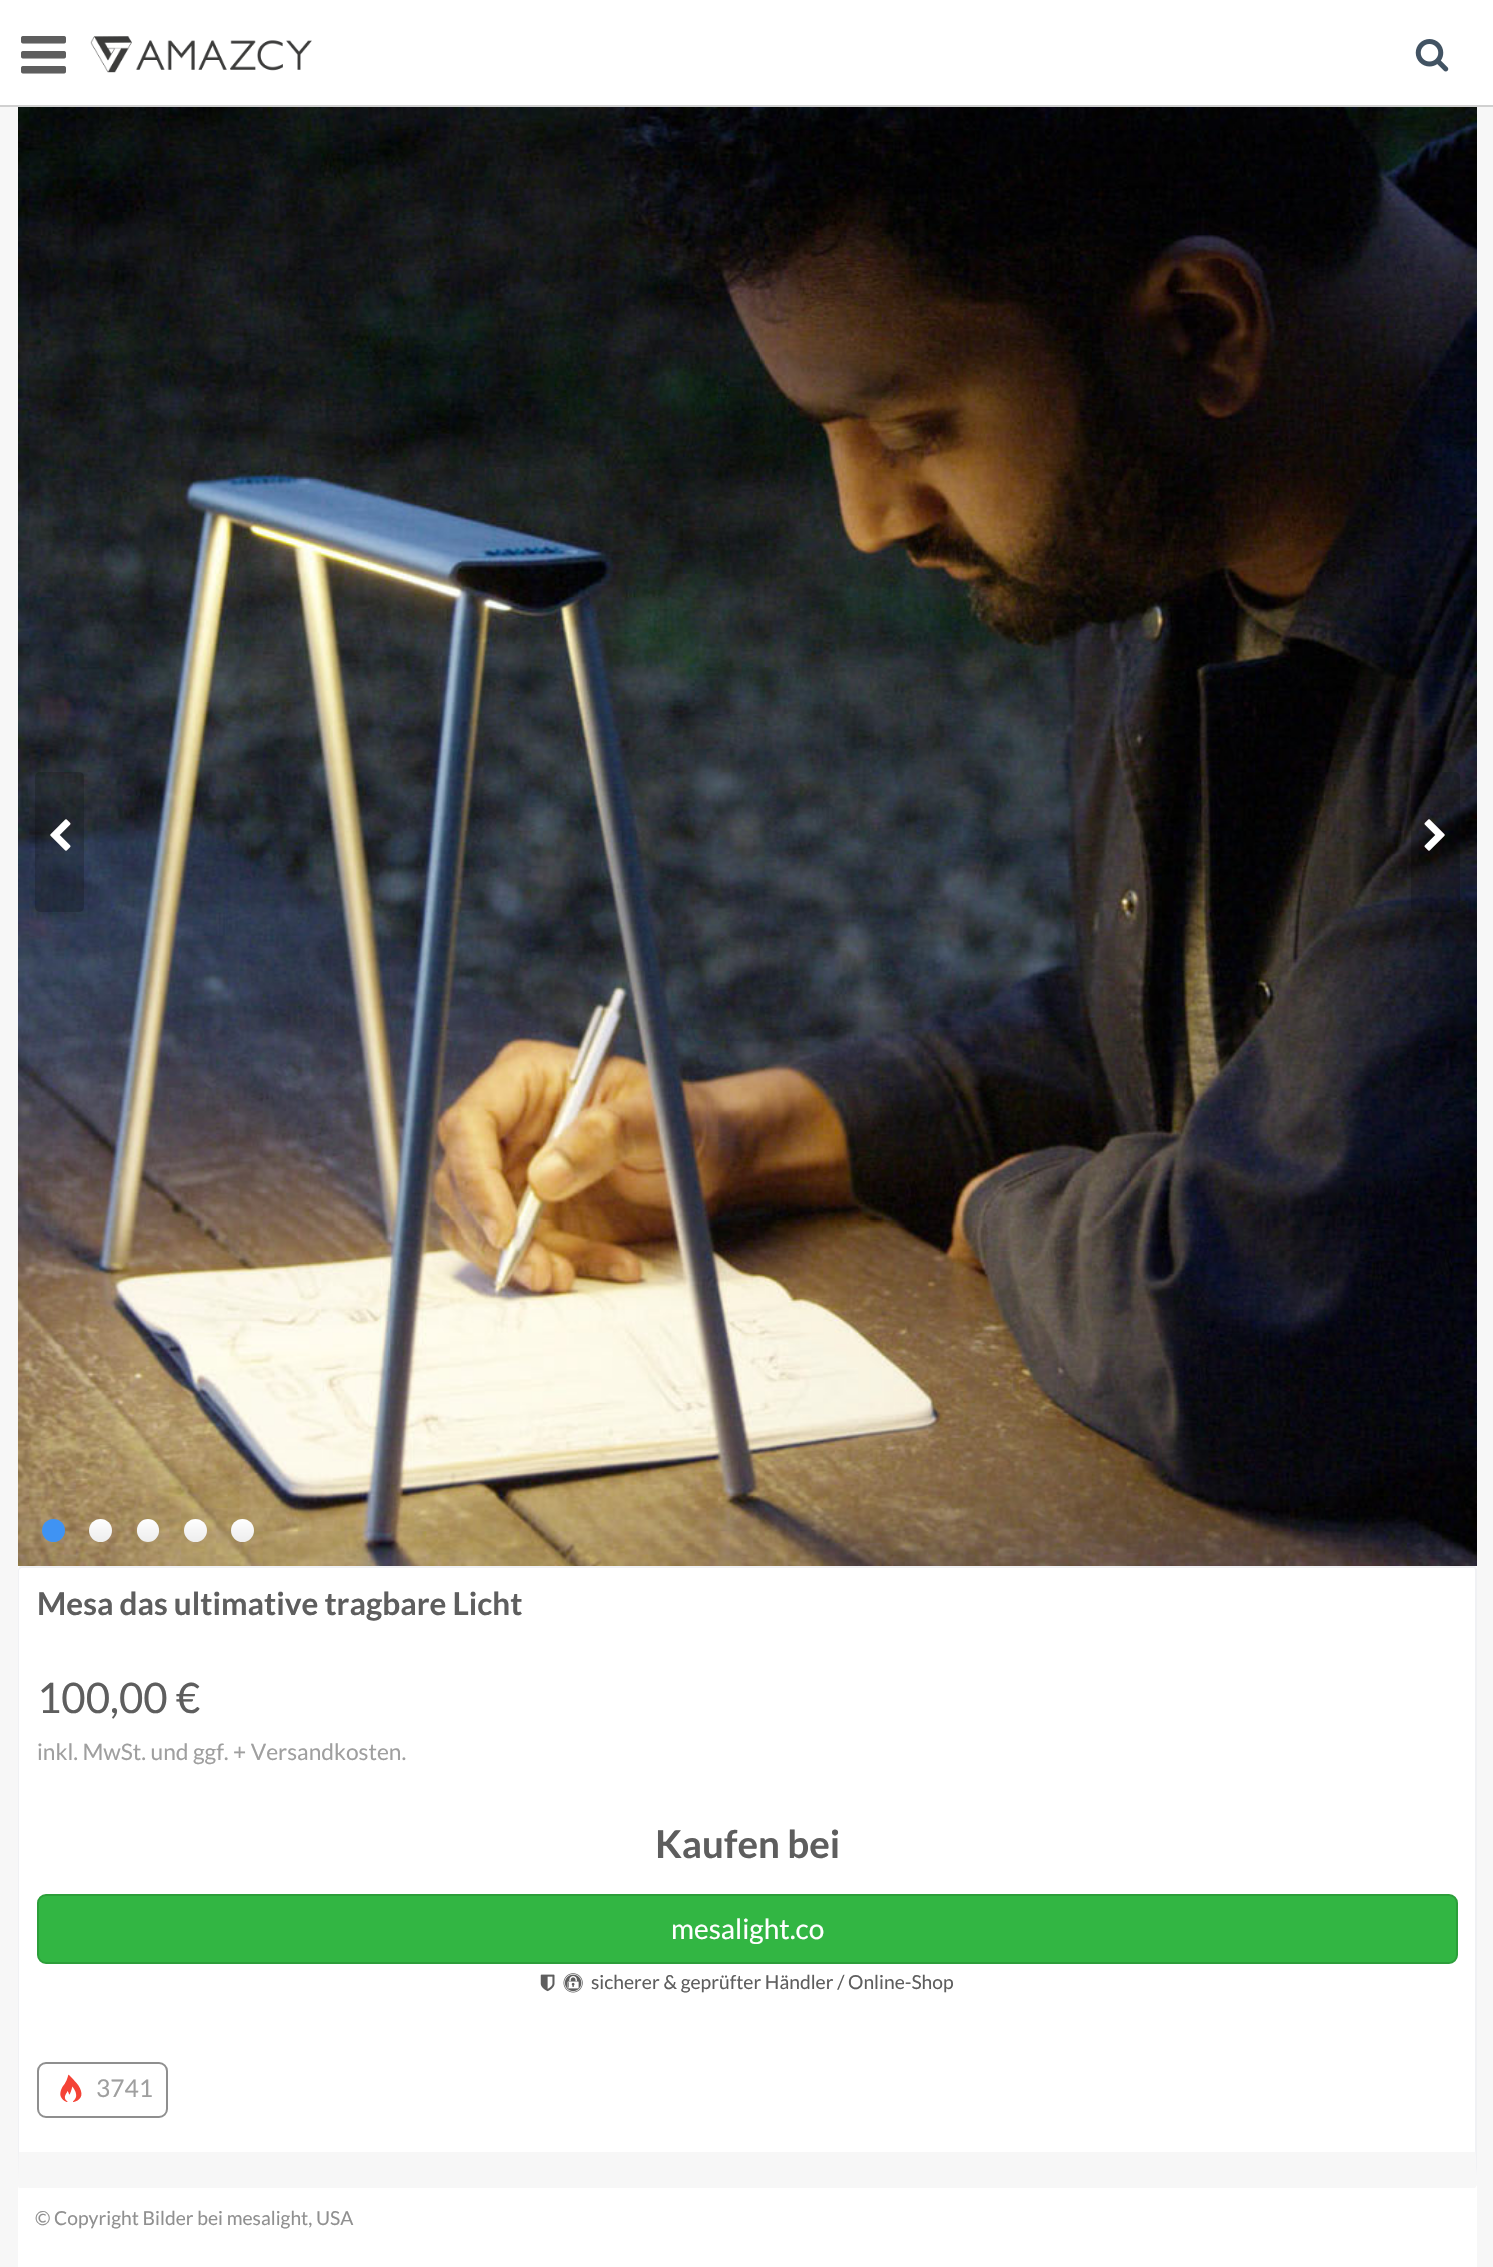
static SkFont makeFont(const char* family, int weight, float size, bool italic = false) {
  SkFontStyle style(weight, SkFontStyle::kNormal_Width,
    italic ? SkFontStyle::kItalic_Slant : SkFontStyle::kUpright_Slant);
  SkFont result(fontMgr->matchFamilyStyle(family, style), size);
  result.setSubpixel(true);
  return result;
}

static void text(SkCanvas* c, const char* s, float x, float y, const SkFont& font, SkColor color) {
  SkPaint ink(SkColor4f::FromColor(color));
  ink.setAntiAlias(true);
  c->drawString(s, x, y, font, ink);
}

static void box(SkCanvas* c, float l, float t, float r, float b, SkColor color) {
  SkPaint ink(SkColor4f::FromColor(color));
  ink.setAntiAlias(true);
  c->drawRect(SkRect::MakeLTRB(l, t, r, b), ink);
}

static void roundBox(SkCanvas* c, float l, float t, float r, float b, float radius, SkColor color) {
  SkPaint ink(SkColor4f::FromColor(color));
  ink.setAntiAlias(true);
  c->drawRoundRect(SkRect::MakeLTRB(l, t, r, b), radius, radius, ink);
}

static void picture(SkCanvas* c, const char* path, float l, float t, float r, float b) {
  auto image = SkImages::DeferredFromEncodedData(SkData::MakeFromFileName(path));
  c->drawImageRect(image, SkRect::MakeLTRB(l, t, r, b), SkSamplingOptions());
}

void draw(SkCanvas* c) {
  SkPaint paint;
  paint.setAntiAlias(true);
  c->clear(0xfff7f7f7);
  box(c, 0, 0, 1493, 105, 0xffffffff);
  box(c, 0, 105, 1493, 107, 0xffd0d0d0);
  picture(c, "img_01.png", 21, 36, 66, 74);
  picture(c, "img_02.png", 90, 36, 312, 73);
  picture(c, "img_03.png", 1415, 39, 1449, 72);
  box(c, 18, 1566, 1477, 2267, 0xffffffff);
  picture(c, "img_04.png", 18, 107, 1477, 1566);
  roundBox(c, 35, 772, 84, 912, 5, 0x33000000);
  picture(c, "img_05.png", 50, 819, 71, 851);
  roundBox(c, 1411, 772, 1460, 912, 5, 0x33000000);
  picture(c, "img_06.png", 1424, 819, 1445, 851);
  paint.setColor(0xff3f93f3);
  c->drawCircle(53.5f, 1530.5f, 11.5f, paint);
  {
    const SkColor colors[] = {0xffffffff, 0xfff6f6f6, 0xffededed};
    const float stops[] = {0, 0.47f, 1};
    const SkPoint ends[] = {{101, 1519}, {101, 1542}};
    paint.setShader(SkGradientShader::MakeLinear(ends, colors, stops, 3, SkTileMode::kClamp));
    paint.setAlpha(255);
  }
  c->drawCircle(100.5f, 1530.5f, 11.5f, paint);
  {
    const SkColor colors[] = {0xffffffff, 0xfff6f6f6, 0xffededed};
    const float stops[] = {0, 0.47f, 1};
    const SkPoint ends[] = {{148, 1519}, {148, 1542}};
    paint.setShader(SkGradientShader::MakeLinear(ends, colors, stops, 3, SkTileMode::kClamp));
    paint.setAlpha(255);
  }
  c->drawRoundRect(SkRect::MakeLTRB(137, 1519, 159, 1542), 11, 11, paint);
  {
    const SkColor colors[] = {0xffffffff, 0xfff6f6f6, 0xffededed};
    const float stops[] = {0, 0.47f, 1};
    const SkPoint ends[] = {{195, 1519}, {195, 1542}};
    paint.setShader(SkGradientShader::MakeLinear(ends, colors, stops, 3, SkTileMode::kClamp));
    paint.setAlpha(255);
  }
  c->drawCircle(195.5f, 1530.5f, 11.5f, paint);
  {
    const SkColor colors[] = {0xffffffff, 0xfff6f6f6, 0xffededed};
    const float stops[] = {0, 0.47f, 1};
    const SkPoint ends[] = {{242, 1519}, {242, 1542}};
    paint.setShader(SkGradientShader::MakeLinear(ends, colors, stops, 3, SkTileMode::kClamp));
    paint.setAlpha(255);
  }
  c->drawCircle(242.5f, 1530.5f, 11.5f, paint);
  paint.setShader(nullptr);
  paint.setColor(0xfff0f1f4);
  c->drawPath(SkPathBuilder().moveTo(21, 1568).lineTo(20, 1569).lineTo(19, 1567).lineTo(20, 1566).lineTo(1475, 1566).lineTo(1476, 1567).lineTo(1475, 1569).lineTo(1474, 1568).close().detach(), paint);
  c->drawPath(SkPathBuilder().moveTo(1477, 2184).lineTo(1477, 1570).lineTo(1476, 1567).lineTo(1475, 1569).lineTo(1475, 1570).lineTo(1475, 2148).lineTo(1477, 2185).close().detach(), paint);
  paint.setColor(0xfff7f7f7);
  c->drawPath(SkPathBuilder().moveTo(19, 2188).cubicTo(16, 2185, 19, 2156, 19, 2152).lineTo(1475, 2152).lineTo(1475, 2148).lineTo(1477, 2185).lineTo(1475, 2188).close().detach(), paint);
  paint.setColor(0xfff0f1f4);
  c->drawPath(SkPathBuilder().moveTo(18, 2178).lineTo(18, 1570).lineTo(19, 1567).lineTo(20, 1569).lineTo(19, 1570).lineTo(19, 2152).close().detach(), paint);
  SkFont face1 = makeFont("Lato", 700, 31.5f);
  text(c, "Mesa das ultimative tragbare Licht", 37, 1615, face1, 0xff5e5e5e);
  SkFont face2 = makeFont("Lato", 400, 42);
  text(c, "100,00 €", 37, 1713, face2, 0xff5e5e5e);
  SkFont face3 = makeFont("Lato", 400, 22.75f);
  text(c, "inkl. MwSt. und ggf. + Versandkosten.", 37, 1760, face3, 0xff9f9f9f);
  SkFont face4 = makeFont("Lato", 700, 38.5f);
  text(c, "Kaufen bei", 655, 1858, face4, 0xff5e5e5e);
  paint.setColor(0xff32b643);
  c->drawRoundRect(SkRect::MakeLTRB(38, 1895, 1457, 1963), 8, 8, paint);
  paint.setStyle(SkPaint::kStroke_Style);
  paint.setStrokeWidth(2);
  paint.setColor(0xff2c9e3a);
  c->drawRoundRect(SkRect::MakeLTRB(38, 1895, 1457, 1963), 8, 8, paint);
  SkFont face5 = makeFont("Lato", 400, 28);
  text(c, "mesalight.co", 671, 1939, face5, 0xffffffff);
  picture(c, "img_07.png", 540, 1974, 555, 1992);
  picture(c, "img_08.png", 563, 1973, 583, 1993);
  SkFont face6 = makeFont("Lato", 400, 19.25f);
  text(c, "sicherer & geprüfter Händler / Online-Shop", 591, 1989, face6, 0xff5e5e5e);
  paint.setColor(0xff8f8f8f);
  c->drawRoundRect(SkRect::MakeLTRB(38, 2063, 167, 2117), 8, 8, paint);
  picture(c, "img_09.png", 60, 2074, 82, 2102);
  SkFont face7 = makeFont("Lato", 400, 24.5f);
  text(c, "3741", 96, 2097, face7, 0xff9f9f9f);
  text(c, "© Copyright Bilder bei mesalight, USA", 35, 2225, face6, 0xff909090);
}
